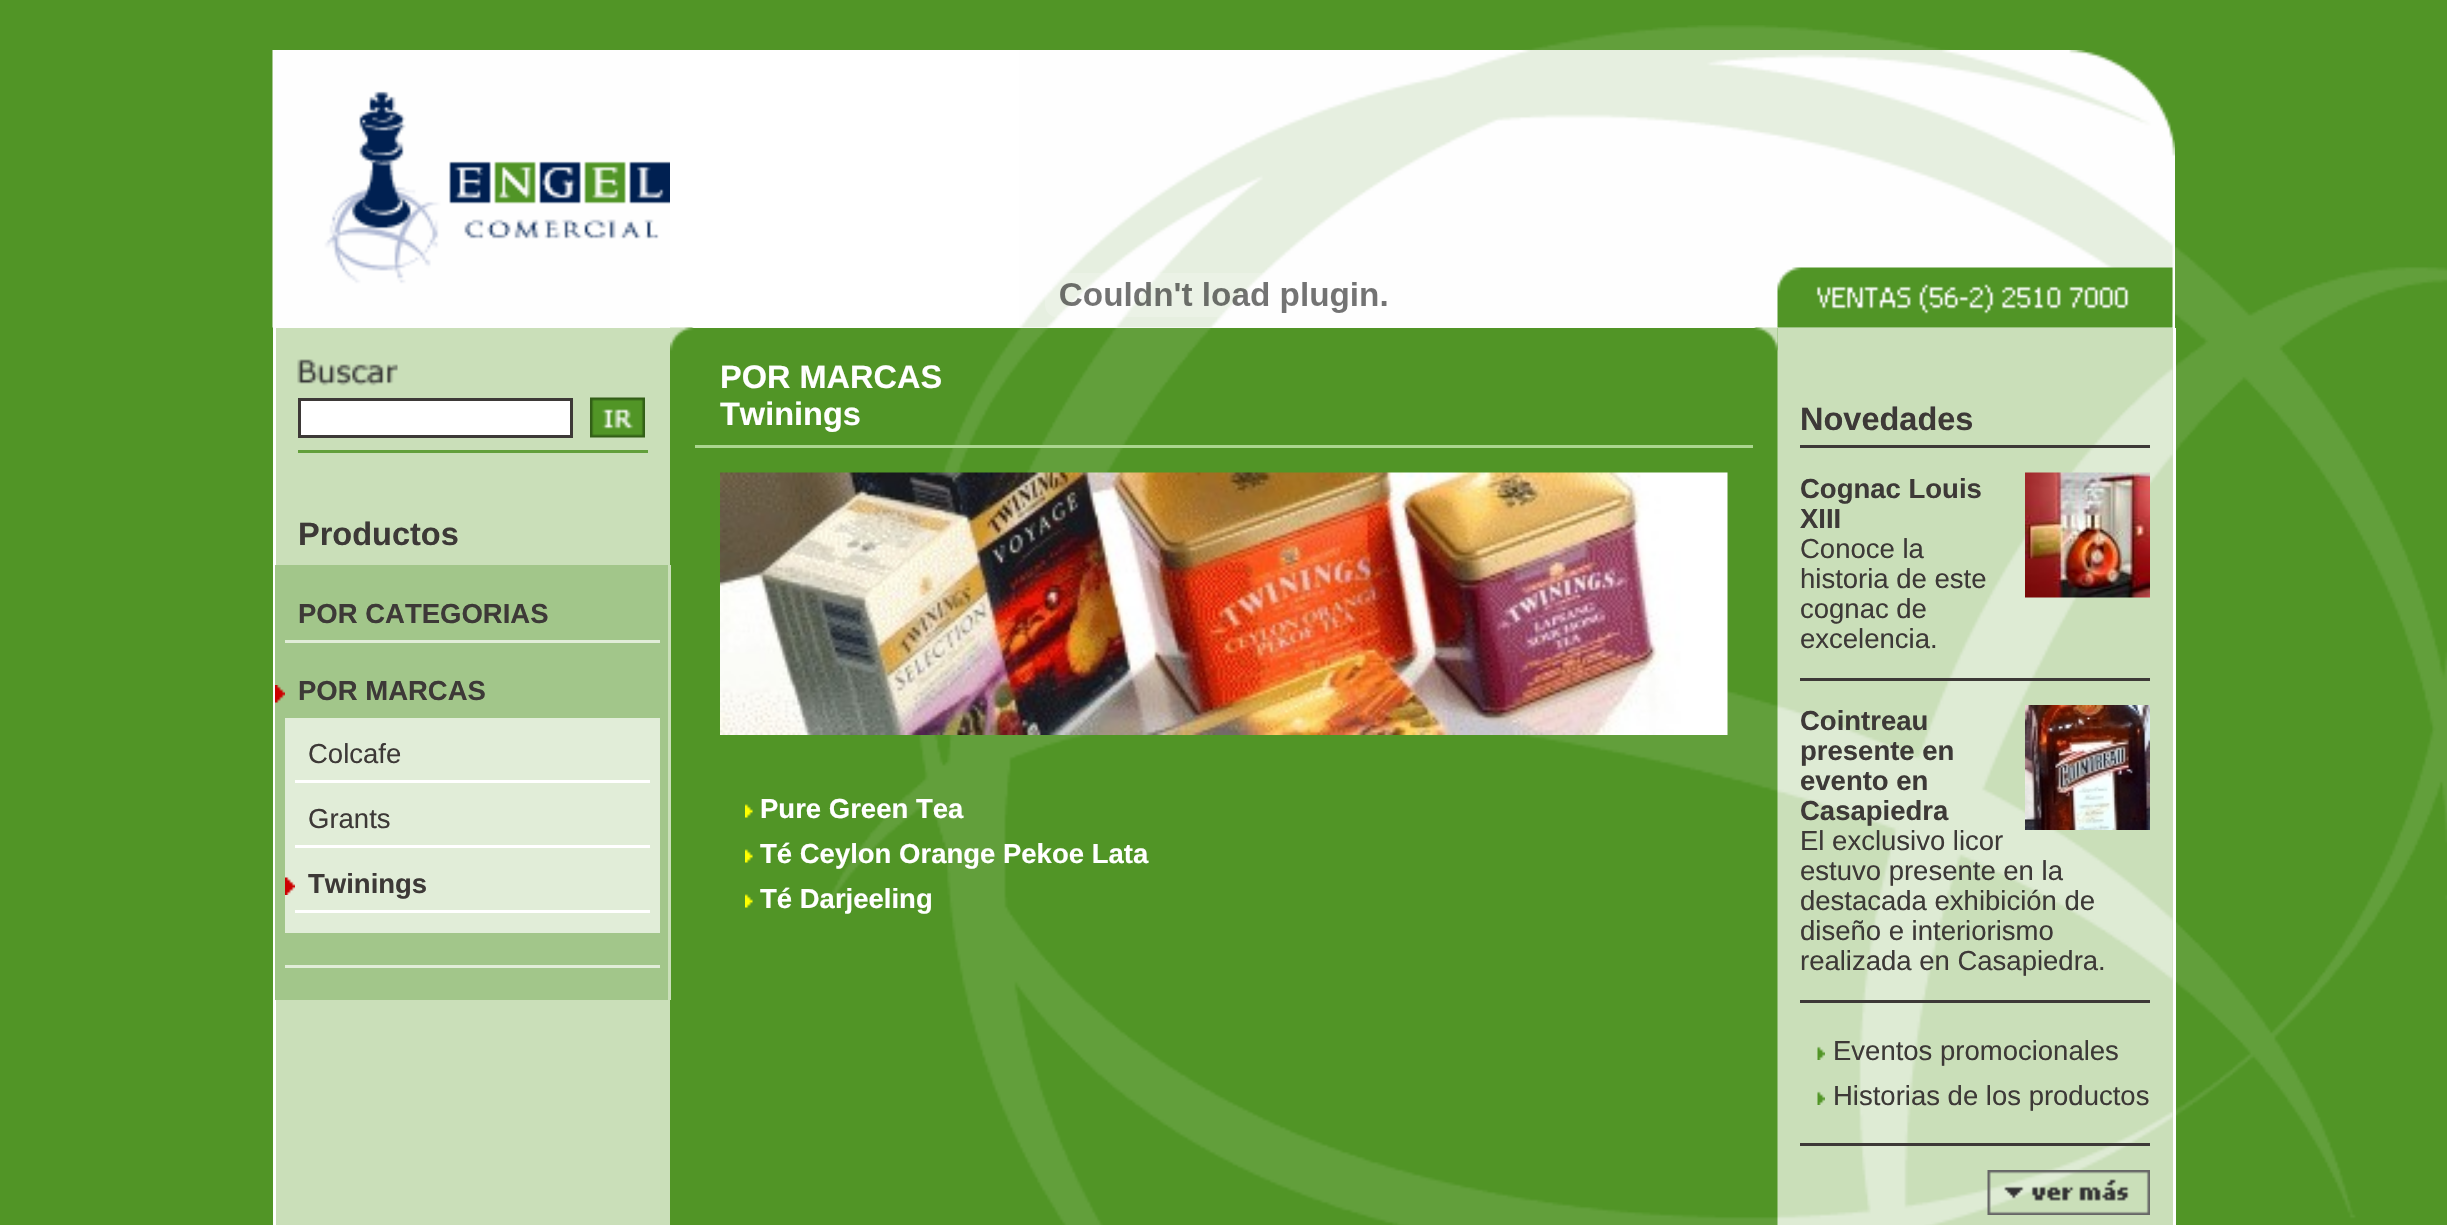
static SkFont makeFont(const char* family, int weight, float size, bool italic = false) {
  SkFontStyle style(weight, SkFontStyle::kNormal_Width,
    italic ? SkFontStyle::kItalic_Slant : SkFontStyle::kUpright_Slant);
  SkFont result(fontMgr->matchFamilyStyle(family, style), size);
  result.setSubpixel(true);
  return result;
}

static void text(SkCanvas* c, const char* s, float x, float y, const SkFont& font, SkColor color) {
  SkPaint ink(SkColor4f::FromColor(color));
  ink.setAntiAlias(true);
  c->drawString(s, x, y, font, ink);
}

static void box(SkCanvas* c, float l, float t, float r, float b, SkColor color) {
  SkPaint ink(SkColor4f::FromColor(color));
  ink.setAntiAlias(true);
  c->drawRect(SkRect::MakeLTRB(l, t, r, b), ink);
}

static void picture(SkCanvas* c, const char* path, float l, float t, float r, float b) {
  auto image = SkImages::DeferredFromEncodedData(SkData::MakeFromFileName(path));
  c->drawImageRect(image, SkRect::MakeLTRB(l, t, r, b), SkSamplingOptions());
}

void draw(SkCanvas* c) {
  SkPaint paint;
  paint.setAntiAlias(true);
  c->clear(0xff519526);
  picture(c, "img_01.png", 825, 25, 2447, 1225);
  box(c, 273, 50, 2175, 328, 0xffffffff);
  picture(c, "img_02.png", 272, 50, 670, 328);
  picture(c, "img_03.png", 1019, 50, 2175, 328);
  picture(c, "img_04.png", 1045, 273, 1387, 317);
  box(c, 2172, 328, 2173, 1225, 0xffcadfb9);
  picture(c, "img_14.png", 1777, 327, 2173, 1225);
  picture(c, "img_05.png", 1777, 267, 2173, 328);
  box(c, 276, 328, 670, 1225, 0xffcadfb9);
  box(c, 273, 328, 276, 1225, 0xffffffff);
  picture(c, "img_06.png", 297, 359, 398, 386);
  box(c, 298, 450, 648, 453, 0xff629f3b);
  paint.setColor(0xffffffff);
  c->drawRect(SkRect::MakeLTRB(299.5f, 399.5f, 571.5f, 436.5f), paint);
  paint.setStyle(SkPaint::kStroke_Style);
  paint.setStrokeWidth(3);
  paint.setColor(0xff3d3937);
  c->drawRect(SkRect::MakeLTRB(299.5f, 399.5f, 571.5f, 436.5f), paint);
  picture(c, "img_07.png", 590, 397, 645, 438);
  SkFont face1 = makeFont("Liberation Sans", 700, 32.5f);
  text(c, "Productos", 298, 545, face1, 0xff3d3937);
  box(c, 275, 565, 668, 1000, 0xffa2c68a);
  box(c, 670, 565, 671, 1000, 0xffcadfb9);
  SkFont face2 = makeFont("Liberation Sans", 700, 27.5f);
  text(c, "POR CATEGORIAS", 298, 623, face2, 0xff3d3937);
  box(c, 285, 640, 660, 643, 0xffe1edd8);
  picture(c, "img_08.png", 275, 685, 285, 703);
  text(c, "POR MARCAS", 298, 700, face2, 0xff3d3937);
  box(c, 285, 718, 660, 933, 0xffe1edd8);
  SkFont face3 = makeFont("Liberation Sans", 400, 27.5f);
  text(c, "Colcafe", 308, 763, face3, 0xff3d3937);
  box(c, 295, 780, 650, 783, 0xffffffff);
  text(c, "Grants", 308, 828, face3, 0xff3d3937);
  box(c, 295, 845, 650, 848, 0xffffffff);
  picture(c, "img_09.png", 285, 877, 295, 895);
  text(c, "Twinings", 308, 893, face2, 0xff3d3937);
  box(c, 295, 910, 650, 913, 0xffffffff);
  box(c, 285, 965, 660, 968, 0xffe1edd8);
  picture(c, "img_10.png", 670, 327, 694, 351);
  picture(c, "img_11.png", 1754, 327, 1778, 351);
  box(c, 695, 445, 1753, 448, 0xffabd68f);
  text(c, "POR MARCAS", 720, 388, face1, 0xffffffff);
  text(c, "Twinings", 720, 425, face1, 0xffffffff);
  picture(c, "img_12.png", 720, 472, 1728, 735);
  picture(c, "img_13.png", 745, 804, 753, 818);
  text(c, "Pure Green Tea", 760, 818, face2, 0xffffffff);
  picture(c, "img_13.png", 745, 849, 753, 863);
  text(c, "Té Ceylon Orange Pekoe Lata", 760, 863, face2, 0xffffffff);
  picture(c, "img_13.png", 745, 894, 753, 908);
  text(c, "Té Darjeeling", 760, 908, face2, 0xffffffff);
  box(c, 2173, 328, 2176, 1225, 0xffffffff);
  text(c, "Novedades", 1800, 430, face1, 0xff3d3937);
  box(c, 1800, 445, 2150, 448, 0xff3d3937);
  text(c, "Cognac Louis", 1800, 498, face2, 0xff3d3937);
  picture(c, "img_15.png", 2025, 472, 2150, 598);
  text(c, "XIII", 1800, 528, face2, 0xff3d3937);
  text(c, "Conoce la", 1800, 558, face3, 0xff3d3937);
  text(c, "historia de este", 1800, 588, face3, 0xff3d3937);
  text(c, "cognac de", 1800, 618, face3, 0xff3d3937);
  text(c, "excelencia.", 1800, 648, face3, 0xff3d3937);
  box(c, 1800, 678, 2150, 681, 0xff3d3937);
  text(c, "Cointreau", 1800, 730, face2, 0xff3d3937);
  picture(c, "img_16.png", 2025, 705, 2150, 830);
  text(c, "presente en", 1800, 760, face2, 0xff3d3937);
  text(c, "evento en", 1800, 790, face2, 0xff3d3937);
  text(c, "Casapiedra", 1800, 820, face2, 0xff3d3937);
  text(c, "El exclusivo licor", 1800, 850, face3, 0xff3d3937);
  text(c, "estuvo presente en la", 1800, 880, face3, 0xff3d3937);
  text(c, "destacada exhibición de", 1800, 910, face3, 0xff3d3937);
  text(c, "diseño e interiorismo", 1800, 940, face3, 0xff3d3937);
  text(c, "realizada en Casapiedra.", 1800, 970, face3, 0xff3d3937);
  box(c, 1800, 1000, 2150, 1003, 0xff3d3937);
  picture(c, "img_17.png", 1817, 1046, 1825, 1060);
  text(c, "Eventos promocionales", 1833, 1060, face3, 0xff3d3937);
  picture(c, "img_17.png", 1817, 1091, 1825, 1105);
  text(c, "Historias de los productos", 1833, 1105, face3, 0xff3d3937);
  box(c, 1800, 1143, 2150, 1146, 0xff3d3937);
  picture(c, "img_18.png", 1987, 1170, 2150, 1215);
}
